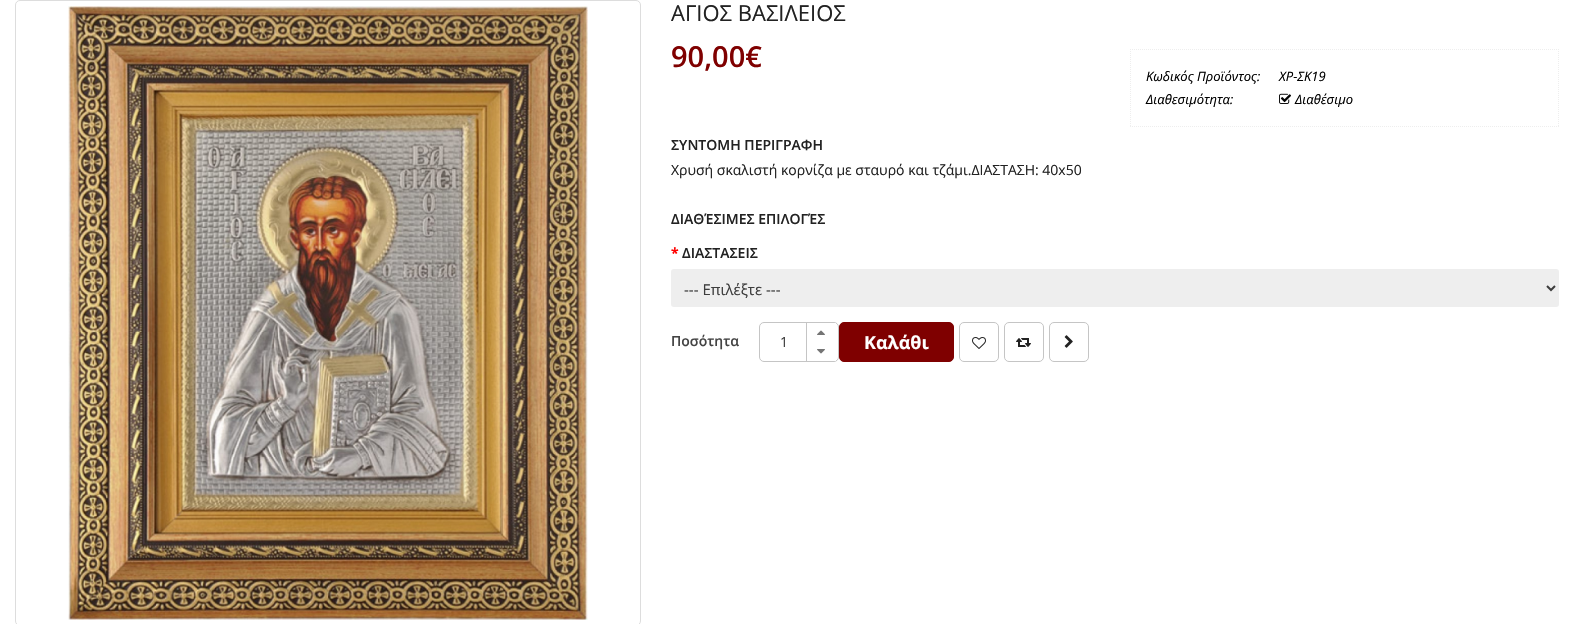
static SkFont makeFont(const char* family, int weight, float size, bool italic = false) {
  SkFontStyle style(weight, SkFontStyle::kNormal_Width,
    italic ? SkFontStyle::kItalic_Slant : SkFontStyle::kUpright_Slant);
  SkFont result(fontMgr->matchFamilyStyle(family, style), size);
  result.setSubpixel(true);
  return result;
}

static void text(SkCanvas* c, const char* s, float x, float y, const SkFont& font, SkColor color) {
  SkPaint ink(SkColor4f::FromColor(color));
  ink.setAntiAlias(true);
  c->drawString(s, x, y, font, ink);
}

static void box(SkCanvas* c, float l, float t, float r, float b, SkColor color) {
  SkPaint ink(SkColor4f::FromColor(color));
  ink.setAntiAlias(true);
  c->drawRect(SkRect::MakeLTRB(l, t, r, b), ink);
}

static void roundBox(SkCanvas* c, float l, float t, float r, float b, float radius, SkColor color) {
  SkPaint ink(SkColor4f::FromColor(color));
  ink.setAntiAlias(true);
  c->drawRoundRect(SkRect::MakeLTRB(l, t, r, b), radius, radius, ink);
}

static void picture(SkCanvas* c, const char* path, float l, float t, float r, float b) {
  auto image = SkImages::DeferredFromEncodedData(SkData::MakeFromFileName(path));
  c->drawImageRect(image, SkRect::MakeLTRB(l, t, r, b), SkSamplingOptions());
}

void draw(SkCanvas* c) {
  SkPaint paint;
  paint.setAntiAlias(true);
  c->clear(0xffffffff);
  paint.setStyle(SkPaint::kStroke_Style);
  paint.setStrokeWidth(1);
  paint.setColor(0xffdddddd);
  c->drawRoundRect(SkRect::MakeLTRB(15.5f, 0.5f, 640.5f, 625.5f), 4.5f, 4.5f, paint);
  picture(c, "img_01.png", 68, 6, 588, 620);
  SkFont face1 = makeFont("Open Sans", 400, 22);
  text(c, "ΑΓΙΟΣ ΒΑΣΙΛΕΙΟΣ", 671, 21, face1, 0xff222222);
  SkFont face2 = makeFont("Open Sans", 600, 29);
  text(c, "90,00€", 671, 67, face2, 0xff7f0000);
  paint.setColor(0xffeeeeee);
  paint.setPathEffect(SkDashPathEffect::Make({{1, 1}}, 0));
  c->drawPath(SkPathBuilder().moveTo(1130, 49.5f).lineTo(1559, 49.5f).detach(), paint);
  paint.setPathEffect(nullptr);
  paint.setPathEffect(SkDashPathEffect::Make({{1, 1}}, 0));
  c->drawPath(SkPathBuilder().moveTo(1558.5f, 49).lineTo(1558.5f, 127).detach(), paint);
  paint.setPathEffect(nullptr);
  paint.setPathEffect(SkDashPathEffect::Make({{1, 1}}, 0));
  c->drawPath(SkPathBuilder().moveTo(1130, 126.5f).lineTo(1559, 126.5f).detach(), paint);
  paint.setPathEffect(nullptr);
  paint.setPathEffect(SkDashPathEffect::Make({{1, 1}}, 0));
  c->drawPath(SkPathBuilder().moveTo(1130.5f, 49).lineTo(1130.5f, 127).detach(), paint);
  paint.setPathEffect(nullptr);
  SkFont face3 = makeFont("Open Sans", 400, 13, true);
  text(c, "Κωδικός Προϊόντος:", 1146, 81, face3, 0xff000000);
  text(c, "ΧΡ-ΣΚ19", 1279, 81, face3, 0xff000000);
  text(c, "Διαθεσιμότητα:", 1146, 104, face3, 0xff000000);
  picture(c, "img_02.png", 1279, 93, 1291, 104);
  text(c, "Διαθέσιμο", 1295, 104, face3, 0xff000000);
  SkFont face4 = makeFont("Open Sans", 600, 14);
  text(c, "ΣΥΝΤΟΜΗ ΠΕΡΙΓΡΑΦΗ", 671, 150, face4, 0xff222222);
  SkFont face5 = makeFont("Open Sans", 400, 14);
  text(c, "Χρυσή σκαλιστή κορνίζα με σταυρό και τζάμι.ΔΙΑΣΤΑΣΗ: 40x50", 671, 175, face5, 0xff222222);
  text(c, "ΔΙΑΘΈΣΙΜΕΣ ΕΠΙΛΟΓΈΣ", 671, 224, face4, 0xff222222);
  SkFont face6 = makeFont("Open Sans", 700, 14);
  text(c, "*", 671, 258, face6, 0xffff0000);
  text(c, "ΔΙΑΣΤΑΣΕΙΣ", 682, 258, face4, 0xff222222);
  roundBox(c, 671, 269, 1559, 307, 3, 0xffeeeeee);
  paint.setStrokeWidth(2);
  paint.setColor(0xff3d3d3d);
  c->drawPath(SkPathBuilder().moveTo(1547, 286).lineTo(1551, 290).lineTo(1555, 286).detach(), paint);
  SkFont face7 = makeFont("Open Sans", 400, 15);
  text(c, "--- Επιλέξτε ---", 684, 295, face7, 0xff3d3d3d);
  paint.setStrokeWidth(1);
  paint.setColor(0xffc5c5c5);
  c->drawRoundRect(SkRect::MakeLTRB(759.5f, 322.5f, 838.5f, 361.5f), 4.5f, 4.5f, paint);
  box(c, 834, 360, 836, 361, 0xffffffff);
  box(c, 806, 323, 807, 361, 0xffc5c5c5);
  picture(c, "img_03.png", 817, 349, 825, 354);
  box(c, 834, 323, 836, 324, 0xffffffff);
  picture(c, "img_04.png", 817, 330, 825, 335);
  text(c, "Ποσότητα", 671, 346, face4, 0xff444444);
  text(c, "1", 780, 347, face5, 0xff3d3d3d);
  paint.setStyle(SkPaint::kFill_Style);
  paint.setColor(0xff7f0000);
  c->drawRoundRect(SkRect::MakeLTRB(839.5f, 322.5f, 953.5f, 361.5f), 4.5f, 4.5f, paint);
  paint.setStyle(SkPaint::kStroke_Style);
  c->drawRoundRect(SkRect::MakeLTRB(839.5f, 322.5f, 953.5f, 361.5f), 4.5f, 4.5f, paint);
  SkFont face8 = makeFont("Open Sans", 700, 18);
  text(c, "Καλάθι", 864, 349, face8, 0xffffffff);
  paint.setColor(0xffc5c5c5);
  c->drawRoundRect(SkRect::MakeLTRB(959.5f, 322.5f, 998.5f, 361.5f), 4.5f, 4.5f, paint);
  picture(c, "img_05.png", 972, 337, 986, 349);
  c->drawRoundRect(SkRect::MakeLTRB(1004.5f, 322.5f, 1043.5f, 361.5f), 4.5f, 4.5f, paint);
  picture(c, "img_06.png", 1016, 338, 1031, 347);
  c->drawRoundRect(SkRect::MakeLTRB(1049.5f, 322.5f, 1088.5f, 361.5f), 4.5f, 4.5f, paint);
  picture(c, "img_07.png", 1064, 335, 1073, 348);
}
